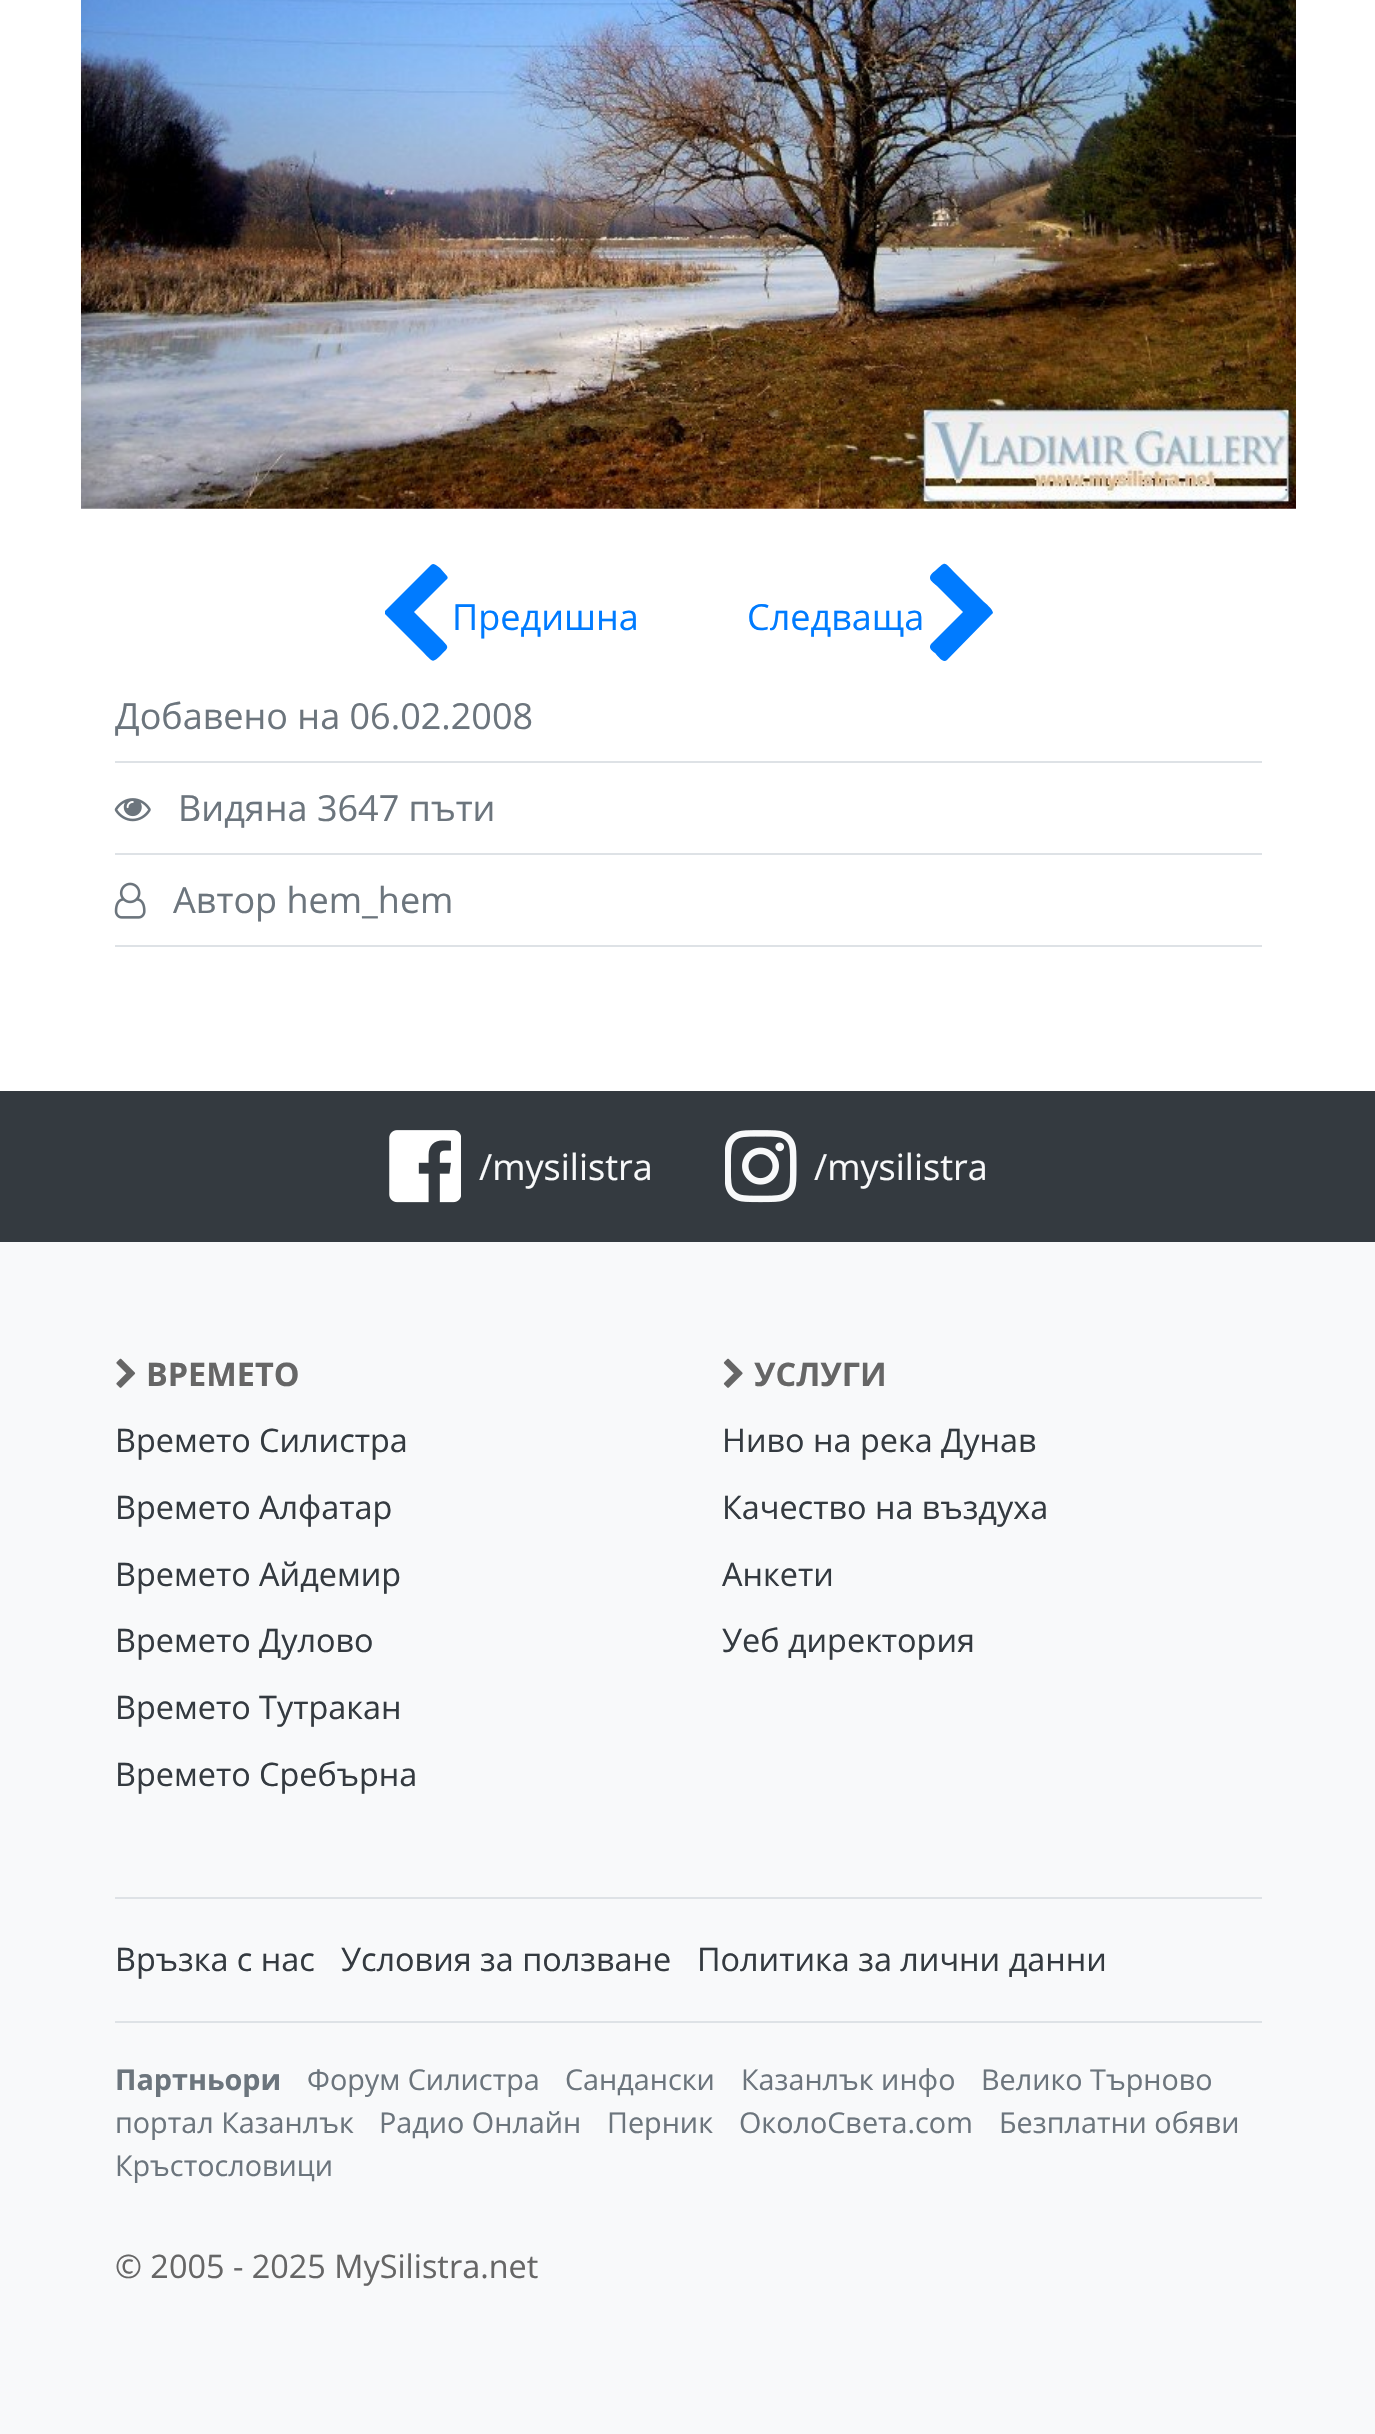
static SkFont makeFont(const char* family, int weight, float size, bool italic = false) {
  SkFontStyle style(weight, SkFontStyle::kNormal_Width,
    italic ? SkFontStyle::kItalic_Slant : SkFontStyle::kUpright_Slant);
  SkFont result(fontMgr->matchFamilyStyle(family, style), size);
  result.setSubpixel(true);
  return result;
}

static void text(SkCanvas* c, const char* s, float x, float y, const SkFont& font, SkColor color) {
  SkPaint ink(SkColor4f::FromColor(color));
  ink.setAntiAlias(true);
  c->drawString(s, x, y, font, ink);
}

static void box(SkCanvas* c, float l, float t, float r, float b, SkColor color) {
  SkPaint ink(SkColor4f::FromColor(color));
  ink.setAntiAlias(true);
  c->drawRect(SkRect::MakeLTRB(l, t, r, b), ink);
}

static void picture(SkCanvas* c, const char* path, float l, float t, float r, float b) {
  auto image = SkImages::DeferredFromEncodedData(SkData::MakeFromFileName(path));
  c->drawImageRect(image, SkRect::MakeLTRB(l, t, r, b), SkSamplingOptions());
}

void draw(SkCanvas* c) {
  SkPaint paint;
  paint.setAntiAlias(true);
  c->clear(0xffffffff);
  picture(c, "img_01.png", 81, 0, 1296, 509);
  paint.setColor(0xff007bff);
  c->drawPath(SkPathBuilder().moveTo(446, 580).lineTo(414, 612).lineTo(441, 639).cubicTo(450, 648, 449, 647, 440, 656).cubicTo(432, 664, 432, 661, 423, 652).lineTo(385, 614).cubicTo(385, 613, 385, 612, 385, 611).lineTo(431, 565).cubicTo(434, 562, 437, 566, 440, 568).lineTo(447, 576).cubicTo(448, 577, 448, 579, 446, 580).close().detach(), paint);
  SkFont face1 = makeFont("Open Sans", 400, 36);
  text(c, "Предишна", 452, 630, face1, 0xff007bff);
  text(c, "Следваща", 747, 630, face1, 0xff007bff);
  c->drawPath(SkPathBuilder().moveTo(991, 615).lineTo(947, 660).cubicTo(943, 664, 937, 655, 935, 653).cubicTo(932, 651, 928, 648, 931, 644).lineTo(963, 612).lineTo(937, 586).cubicTo(936, 585, 930, 581, 930, 578).cubicTo(930, 574, 934, 572, 936, 570).cubicTo(946, 561, 944, 562, 954, 572).lineTo(984, 602).cubicTo(985, 603, 993, 609, 993, 613).close().detach(), paint);
  box(c, 115, 761, 1262, 763, 0xffdee2e6);
  text(c, "Добавено на 06.02.2008", 115, 729, face1, 0xff6c757d);
  box(c, 115, 853, 1262, 855, 0xffdee2e6);
  picture(c, "img_02.png", 114, 798, 151, 822);
  text(c, "Видяна 3647 пъти", 178, 821, face1, 0xff6c757d);
  box(c, 115, 945, 1262, 947, 0xffdee2e6);
  picture(c, "img_03.png", 114, 882, 146, 919);
  text(c, "Автор hem_hem", 173, 913, face1, 0xff6c757d);
  box(c, 0, 1242, 1375, 2434, 0xfff8f9fa);
  box(c, 0, 1091, 1375, 1242, 0xff343a40);
  picture(c, "img_04.png", 389, 1130, 461, 1203);
  text(c, "/mysilistra", 479, 1180, face1, 0xfff8f9fa);
  picture(c, "img_05.png", 725, 1130, 797, 1203);
  text(c, "/mysilistra", 814, 1180, face1, 0xfff8f9fa);
  picture(c, "img_06.png", 116, 1358, 136, 1388);
  SkFont face2 = makeFont("Open Sans", 700, 32.4f);
  text(c, "ВРЕМЕТО", 146, 1386, face2, 0xff666666);
  SkFont face3 = makeFont("Open Sans", 400, 32.4f);
  text(c, "Времето Силистра", 115, 1452, face3, 0xff343a40);
  text(c, "Времето Алфатар", 115, 1519, face3, 0xff343a40);
  text(c, "Времето Айдемир", 115, 1586, face3, 0xff343a40);
  text(c, "Времето Дулово", 115, 1652, face3, 0xff343a40);
  text(c, "Времето Тутракан", 115, 1719, face3, 0xff343a40);
  text(c, "Времето Сребърна", 115, 1786, face3, 0xff343a40);
  picture(c, "img_07.png", 723, 1358, 743, 1388);
  text(c, "УСЛУГИ", 754, 1386, face2, 0xff666666);
  text(c, "Ниво на река Дунав", 722, 1452, face3, 0xff343a40);
  text(c, "Качество на въздуха", 722, 1519, face3, 0xff343a40);
  text(c, "Анкети", 722, 1586, face3, 0xff343a40);
  text(c, "Уеб директория", 722, 1652, face3, 0xff343a40);
  box(c, 115, 1897, 1262, 1899, 0xffdee2e6);
  box(c, 115, 2021, 1262, 2023, 0xffdee2e6);
  text(c, "Връзка с нас", 115, 1971, face3, 0xff343a40);
  text(c, "Условия за ползване", 341, 1971, face3, 0xff343a40);
  text(c, "Политика за лични данни", 697, 1971, face3, 0xff343a40);
  SkFont face4 = makeFont("Open Sans", 700, 28.75f);
  text(c, "Партньори", 115, 2090, face4, 0xff6c757d);
  SkFont face5 = makeFont("Open Sans", 400, 28.75f);
  text(c, "Форум Силистра", 307, 2090, face5, 0xff6c757d);
  text(c, "Сандански", 565, 2090, face5, 0xff6c757d);
  text(c, "Казанлък инфо", 741, 2090, face5, 0xff6c757d);
  text(c, "Велико Търново", 981, 2090, face5, 0xff6c757d);
  text(c, "портал Казанлък", 115, 2133, face5, 0xff6c757d);
  text(c, "Радио Онлайн", 379, 2133, face5, 0xff6c757d);
  text(c, "Перник", 607, 2133, face5, 0xff6c757d);
  text(c, "ОколоСвета.com", 739, 2133, face5, 0xff6c757d);
  text(c, "Безплатни обяви", 999, 2133, face5, 0xff6c757d);
  text(c, "Кръстословици", 115, 2176, face5, 0xff6c757d);
  text(c, "© 2005 - 2025 MySilistra.net", 115, 2278, face3, 0xff666666);
}
